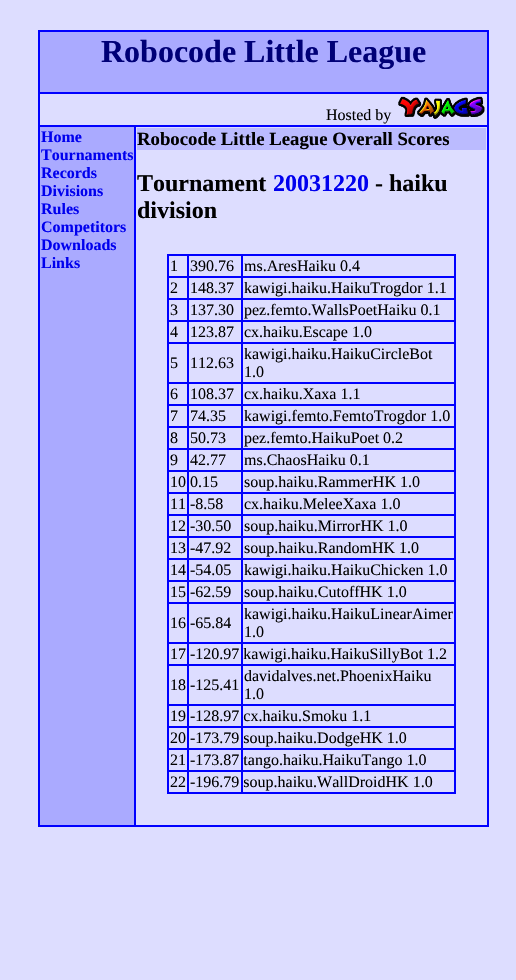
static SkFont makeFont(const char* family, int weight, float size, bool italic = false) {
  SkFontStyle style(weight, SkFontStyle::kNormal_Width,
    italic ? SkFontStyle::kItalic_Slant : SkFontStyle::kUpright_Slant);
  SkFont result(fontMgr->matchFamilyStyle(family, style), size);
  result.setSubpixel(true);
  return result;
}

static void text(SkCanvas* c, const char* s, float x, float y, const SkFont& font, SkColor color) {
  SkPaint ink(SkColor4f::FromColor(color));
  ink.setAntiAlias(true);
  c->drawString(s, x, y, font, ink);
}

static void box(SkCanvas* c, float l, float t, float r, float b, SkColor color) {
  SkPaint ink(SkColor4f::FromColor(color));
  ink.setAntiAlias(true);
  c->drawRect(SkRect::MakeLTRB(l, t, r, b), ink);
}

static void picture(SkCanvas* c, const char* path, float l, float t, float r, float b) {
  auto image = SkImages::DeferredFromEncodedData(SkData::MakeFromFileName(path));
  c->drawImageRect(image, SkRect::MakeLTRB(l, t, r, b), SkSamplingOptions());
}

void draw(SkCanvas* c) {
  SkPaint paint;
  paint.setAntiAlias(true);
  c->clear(0xffddddff);
  box(c, 38, 30, 489, 827, 0xff0000ff);
  box(c, 40, 32, 487, 92, 0xffaaaaff);
  SkFont face1 = makeFont("Liberation Serif", 700, 32);
  text(c, "Robocode Little League", 101, 62, face1, 0xff000077);
  box(c, 40, 94, 487, 125, 0xffddddff);
  SkFont face2 = makeFont("Liberation Serif", 400, 16);
  text(c, "Hosted by", 326, 120, face2, 0xff000000);
  picture(c, "img_01.png", 398, 96, 485, 119);
  box(c, 40, 127, 134, 825, 0xffaaaaff);
  SkFont face3 = makeFont("Liberation Serif", 700, 16);
  text(c, "Home", 41, 142, face3, 0xff0000ee);
  text(c, "Tournaments", 41, 160, face3, 0xff0000ee);
  text(c, "Records", 41, 178, face3, 0xff0000ee);
  text(c, "Divisions", 41, 196, face3, 0xff0000ee);
  text(c, "Rules", 41, 214, face3, 0xff0000ee);
  text(c, "Competitors", 41, 232, face3, 0xff0000ee);
  text(c, "Downloads", 41, 250, face3, 0xff0000ee);
  text(c, "Links", 41, 268, face3, 0xff0000ee);
  box(c, 136, 127, 487, 825, 0xffddddff);
  box(c, 137, 128, 486, 150, 0xffbbbbff);
  SkFont face4 = makeFont("Liberation Serif", 700, 18.75f);
  text(c, "Robocode Little League Overall Scores", 137, 145, face4, 0xff000000);
  SkFont face5 = makeFont("Liberation Serif", 700, 24);
  text(c, "Tournament", 137, 191, face5, 0xff000000);
  text(c, "20031220", 273, 191, face5, 0xff0000ee);
  text(c, "- haiku", 375, 191, face5, 0xff000000);
  text(c, "division", 137, 218, face5, 0xff000000);
  box(c, 167, 254, 456, 794, 0xff0000ff);
  box(c, 169, 256, 187, 276, 0xffddddff);
  text(c, "1", 170, 271, face2, 0xff000000);
  box(c, 189, 256, 241, 276, 0xffddddff);
  text(c, "390.76", 190, 271, face2, 0xff000000);
  box(c, 243, 256, 454, 276, 0xffddddff);
  text(c, "ms.AresHaiku 0.4", 244, 271, face2, 0xff000000);
  box(c, 169, 278, 187, 298, 0xffddddff);
  text(c, "2", 170, 293, face2, 0xff000000);
  box(c, 189, 278, 241, 298, 0xffddddff);
  text(c, "148.37", 190, 293, face2, 0xff000000);
  box(c, 243, 278, 454, 298, 0xffddddff);
  text(c, "kawigi.haiku.HaikuTrogdor 1.1", 244, 293, face2, 0xff000000);
  box(c, 169, 300, 187, 320, 0xffddddff);
  text(c, "3", 170, 315, face2, 0xff000000);
  box(c, 189, 300, 241, 320, 0xffddddff);
  text(c, "137.30", 190, 315, face2, 0xff000000);
  box(c, 243, 300, 454, 320, 0xffddddff);
  text(c, "pez.femto.WallsPoetHaiku 0.1", 244, 315, face2, 0xff000000);
  box(c, 169, 322, 187, 342, 0xffddddff);
  text(c, "4", 170, 337, face2, 0xff000000);
  box(c, 189, 322, 241, 342, 0xffddddff);
  text(c, "123.87", 190, 337, face2, 0xff000000);
  box(c, 243, 322, 454, 342, 0xffddddff);
  text(c, "cx.haiku.Escape 1.0", 244, 337, face2, 0xff000000);
  box(c, 169, 344, 187, 382, 0xffddddff);
  text(c, "5", 170, 368, face2, 0xff000000);
  box(c, 189, 344, 241, 382, 0xffddddff);
  text(c, "112.63", 190, 368, face2, 0xff000000);
  box(c, 243, 344, 454, 382, 0xffddddff);
  text(c, "kawigi.haiku.HaikuCircleBot", 244, 359, face2, 0xff000000);
  text(c, "1.0", 244, 377, face2, 0xff000000);
  box(c, 169, 384, 187, 404, 0xffddddff);
  text(c, "6", 170, 399, face2, 0xff000000);
  box(c, 189, 384, 241, 404, 0xffddddff);
  text(c, "108.37", 190, 399, face2, 0xff000000);
  box(c, 243, 384, 454, 404, 0xffddddff);
  text(c, "cx.haiku.Xaxa 1.1", 244, 399, face2, 0xff000000);
  box(c, 169, 406, 187, 426, 0xffddddff);
  text(c, "7", 170, 421, face2, 0xff000000);
  box(c, 189, 406, 241, 426, 0xffddddff);
  text(c, "74.35", 190, 421, face2, 0xff000000);
  box(c, 243, 406, 454, 426, 0xffddddff);
  text(c, "kawigi.femto.FemtoTrogdor 1.0", 244, 421, face2, 0xff000000);
  box(c, 169, 428, 187, 448, 0xffddddff);
  text(c, "8", 170, 443, face2, 0xff000000);
  box(c, 189, 428, 241, 448, 0xffddddff);
  text(c, "50.73", 190, 443, face2, 0xff000000);
  box(c, 243, 428, 454, 448, 0xffddddff);
  text(c, "pez.femto.HaikuPoet 0.2", 244, 443, face2, 0xff000000);
  box(c, 169, 450, 187, 470, 0xffddddff);
  text(c, "9", 170, 465, face2, 0xff000000);
  box(c, 189, 450, 241, 470, 0xffddddff);
  text(c, "42.77", 190, 465, face2, 0xff000000);
  box(c, 243, 450, 454, 470, 0xffddddff);
  text(c, "ms.ChaosHaiku 0.1", 244, 465, face2, 0xff000000);
  box(c, 189, 472, 241, 492, 0xffddddff);
  box(c, 243, 472, 454, 492, 0xffddddff);
  text(c, "soup.haiku.RammerHK 1.0", 244, 487, face2, 0xff000000);
  box(c, 169, 472, 187, 492, 0xffddddff);
  text(c, "10 0.15", 170, 487, face2, 0xff000000);
  box(c, 189, 494, 241, 514, 0xffddddff);
  box(c, 243, 494, 454, 514, 0xffddddff);
  text(c, "cx.haiku.MeleeXaxa 1.0", 244, 509, face2, 0xff000000);
  box(c, 169, 494, 187, 514, 0xffddddff);
  text(c, "11 -8.58", 170, 509, face2, 0xff000000);
  box(c, 189, 516, 241, 536, 0xffddddff);
  box(c, 243, 516, 454, 536, 0xffddddff);
  text(c, "soup.haiku.MirrorHK 1.0", 244, 531, face2, 0xff000000);
  box(c, 169, 516, 187, 536, 0xffddddff);
  text(c, "12 -30.50", 170, 531, face2, 0xff000000);
  box(c, 189, 538, 241, 558, 0xffddddff);
  box(c, 243, 538, 454, 558, 0xffddddff);
  text(c, "soup.haiku.RandomHK 1.0", 244, 553, face2, 0xff000000);
  box(c, 169, 538, 187, 558, 0xffddddff);
  text(c, "13 -47.92", 170, 553, face2, 0xff000000);
  box(c, 189, 560, 241, 580, 0xffddddff);
  box(c, 243, 560, 454, 580, 0xffddddff);
  text(c, "kawigi.haiku.HaikuChicken 1.0", 244, 575, face2, 0xff000000);
  box(c, 169, 560, 187, 580, 0xffddddff);
  text(c, "14 -54.05", 170, 575, face2, 0xff000000);
  box(c, 189, 582, 241, 602, 0xffddddff);
  box(c, 243, 582, 454, 602, 0xffddddff);
  text(c, "soup.haiku.CutoffHK 1.0", 244, 597, face2, 0xff000000);
  box(c, 169, 582, 187, 602, 0xffddddff);
  text(c, "15 -62.59", 170, 597, face2, 0xff000000);
  box(c, 189, 604, 241, 642, 0xffddddff);
  box(c, 243, 604, 454, 642, 0xffddddff);
  text(c, "kawigi.haiku.HaikuLinearAimer", 244, 619, face2, 0xff000000);
  text(c, "1.0", 244, 637, face2, 0xff000000);
  box(c, 169, 604, 187, 642, 0xffddddff);
  text(c, "16 -65.84", 170, 628, face2, 0xff000000);
  box(c, 189, 644, 241, 664, 0xffddddff);
  box(c, 243, 644, 454, 664, 0xffddddff);
  box(c, 169, 644, 187, 664, 0xffddddff);
  text(c, "17 -120.97 kawigi.haiku.HaikuSillyBot 1.2", 170, 659, face2, 0xff000000);
  box(c, 189, 666, 241, 704, 0xffddddff);
  box(c, 243, 666, 454, 704, 0xffddddff);
  text(c, "davidalves.net.PhoenixHaiku", 244, 681, face2, 0xff000000);
  text(c, "1.0", 244, 699, face2, 0xff000000);
  box(c, 169, 666, 187, 704, 0xffddddff);
  text(c, "18 -125.41", 170, 690, face2, 0xff000000);
  box(c, 189, 706, 241, 726, 0xffddddff);
  box(c, 243, 706, 454, 726, 0xffddddff);
  box(c, 169, 706, 187, 726, 0xffddddff);
  text(c, "19 -128.97 cx.haiku.Smoku 1.1", 170, 721, face2, 0xff000000);
  box(c, 189, 728, 241, 748, 0xffddddff);
  box(c, 243, 728, 454, 748, 0xffddddff);
  box(c, 169, 728, 187, 748, 0xffddddff);
  text(c, "20 -173.79 soup.haiku.DodgeHK 1.0", 170, 743, face2, 0xff000000);
  box(c, 189, 750, 241, 770, 0xffddddff);
  box(c, 243, 750, 454, 770, 0xffddddff);
  box(c, 169, 750, 187, 770, 0xffddddff);
  text(c, "21 -173.87 tango.haiku.HaikuTango 1.0", 170, 765, face2, 0xff000000);
  box(c, 189, 772, 241, 792, 0xffddddff);
  box(c, 243, 772, 454, 792, 0xffddddff);
  box(c, 169, 772, 187, 792, 0xffddddff);
  text(c, "22 -196.79 soup.haiku.WallDroidHK 1.0", 170, 787, face2, 0xff000000);
}
